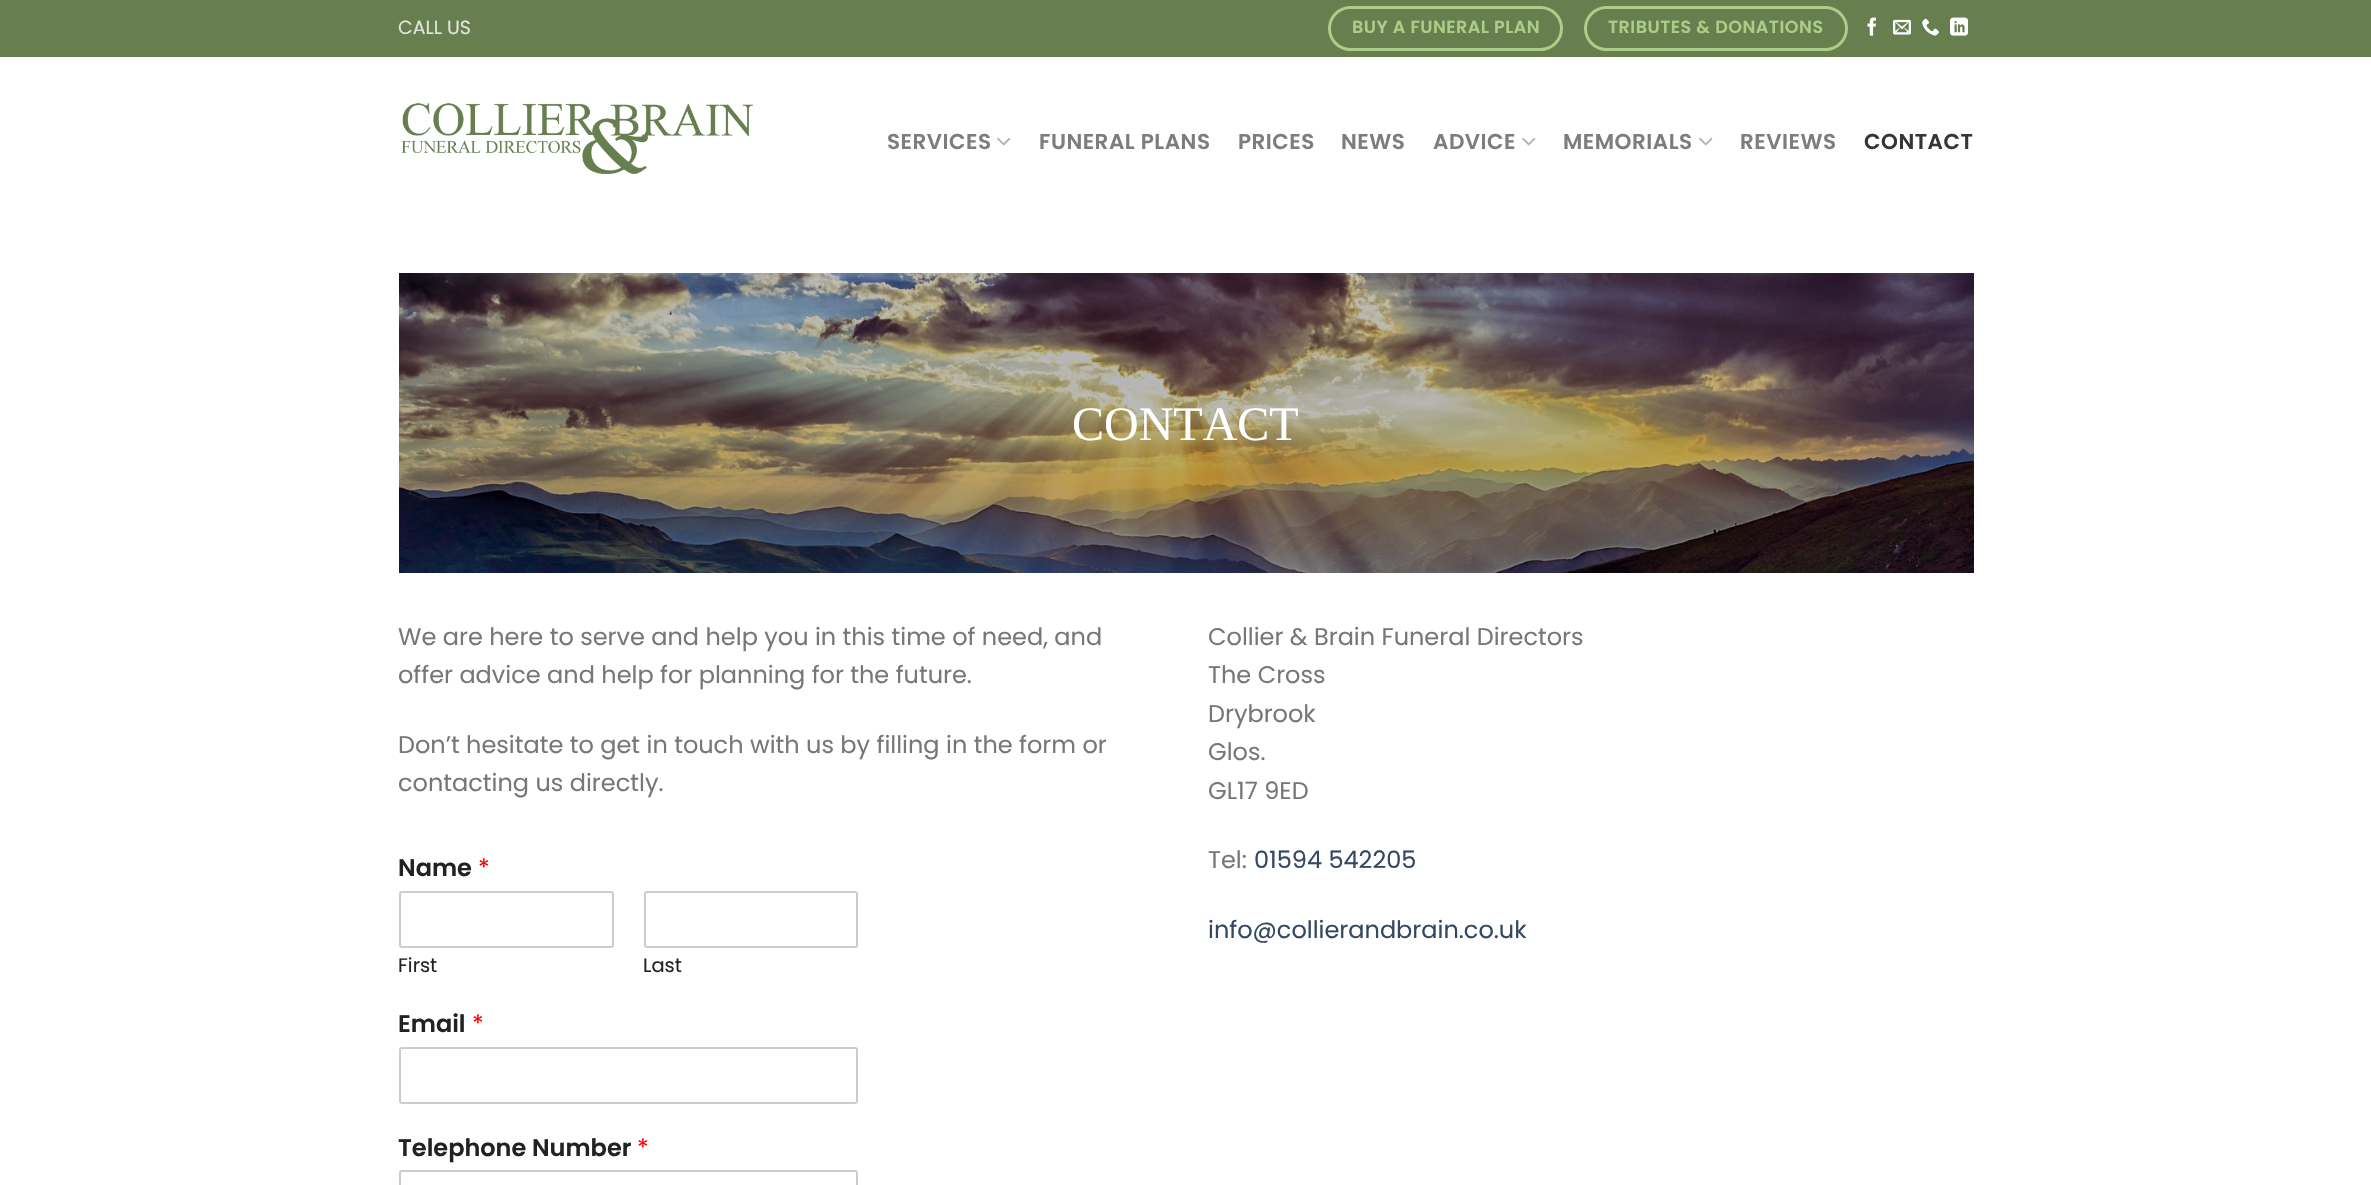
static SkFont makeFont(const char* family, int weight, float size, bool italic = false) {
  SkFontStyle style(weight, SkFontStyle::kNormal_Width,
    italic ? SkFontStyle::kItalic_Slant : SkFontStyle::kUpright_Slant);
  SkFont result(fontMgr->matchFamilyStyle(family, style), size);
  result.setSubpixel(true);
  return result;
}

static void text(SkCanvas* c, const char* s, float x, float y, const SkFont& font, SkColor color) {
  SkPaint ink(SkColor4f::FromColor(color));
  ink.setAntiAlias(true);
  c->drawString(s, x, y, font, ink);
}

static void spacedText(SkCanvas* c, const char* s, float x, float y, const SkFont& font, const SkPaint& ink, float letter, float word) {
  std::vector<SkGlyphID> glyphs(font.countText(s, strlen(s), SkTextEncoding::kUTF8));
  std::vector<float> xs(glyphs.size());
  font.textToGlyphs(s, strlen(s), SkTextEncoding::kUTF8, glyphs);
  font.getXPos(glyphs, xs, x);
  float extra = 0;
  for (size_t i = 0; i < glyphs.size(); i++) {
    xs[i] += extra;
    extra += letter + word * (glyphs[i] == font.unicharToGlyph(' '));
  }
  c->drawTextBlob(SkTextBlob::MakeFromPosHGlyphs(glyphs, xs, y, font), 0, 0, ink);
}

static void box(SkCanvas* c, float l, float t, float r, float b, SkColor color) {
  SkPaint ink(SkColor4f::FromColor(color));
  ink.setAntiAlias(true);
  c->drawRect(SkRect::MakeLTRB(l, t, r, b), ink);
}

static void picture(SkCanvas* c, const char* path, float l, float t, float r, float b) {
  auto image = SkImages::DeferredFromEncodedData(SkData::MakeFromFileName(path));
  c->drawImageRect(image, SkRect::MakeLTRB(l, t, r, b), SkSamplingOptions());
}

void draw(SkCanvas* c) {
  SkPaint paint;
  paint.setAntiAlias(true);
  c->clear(0xffffffff);
  box(c, 0, 0, 2371, 57, 0xff677e4f);
  SkFont face1 = makeFont("Poppins", 400, 19);
  text(c, "CALL US", 398, 34, face1, 0xffe1e5dc);
  paint.setStyle(SkPaint::kStroke_Style);
  paint.setStrokeWidth(3);
  paint.setColor(0xffaccd88);
  c->drawRoundRect(SkRect::MakeLTRB(1329.5f, 7.5f, 1561.5f, 49.5f), 21, 21, paint);
  SkFont face2 = makeFont("Poppins", 600, 17.5f);
  paint.setStyle(SkPaint::kFill_Style);
  spacedText(c, "BUY A FUNERAL PLAN", 1352, 33, face2, paint, 0.5f, 0);
  paint.setStyle(SkPaint::kStroke_Style);
  c->drawRoundRect(SkRect::MakeLTRB(1585.5f, 7.5f, 1846.5f, 49.5f), 21, 21, paint);
  paint.setStyle(SkPaint::kFill_Style);
  spacedText(c, "TRIBUTES & DONATIONS", 1608, 33, face2, paint, 0.5f, 0);
  picture(c, "img_01.png", 1867, 17, 1876, 36);
  picture(c, "img_02.png", 1893, 19, 1911, 35);
  picture(c, "img_03.png", 1922, 18, 1939, 36);
  picture(c, "img_04.png", 1950, 17, 1968, 36);
  picture(c, "img_05.png", 401, 103, 753, 174);
  SkFont face3 = makeFont("Poppins", 600, 21.5f);
  paint.setColor(0xff7d7d7d);
  spacedText(c, "SERVICES", 887, 149, face3, paint, 0.5f, 0);
  picture(c, "img_06.png", 997, 137, 1011, 146);
  spacedText(c, "FUNERAL PLANS", 1039, 149, face3, paint, 0.5f, 0);
  spacedText(c, "PRICES", 1238, 149, face3, paint, 0.5f, 0);
  spacedText(c, "NEWS", 1341, 149, face3, paint, 0.5f, 0);
  spacedText(c, "ADVICE", 1433, 149, face3, paint, 0.5f, 0);
  picture(c, "img_06.png", 1522, 137, 1536, 146);
  spacedText(c, "MEMORIALS", 1563, 149, face3, paint, 0.5f, 0);
  picture(c, "img_06.png", 1699, 137, 1713, 146);
  spacedText(c, "REVIEWS", 1740, 149, face3, paint, 0.5f, 0);
  paint.setColor(0xff363636);
  spacedText(c, "CONTACT", 1864, 149, face3, paint, 0.5f, 0);
  picture(c, "img_07.png", 399, 273, 1974, 573);
  SkFont face4 = makeFont("Tinos", 400, 48);
  text(c, "CONTACT", 1072, 440, face4, 0xffffffff);
  SkFont face5 = makeFont("Poppins", 400, 24);
  text(c, "We are here to serve and help you in this time of need, and", 398, 645, face5, 0xff777777);
  text(c, "offer advice and help for planning for the future.", 398, 683, face5, 0xff777777);
  text(c, "Don’t hesitate to get in touch with us by filling in the form or", 398, 753, face5, 0xff777777);
  text(c, "contacting us directly.", 398, 791, face5, 0xff777777);
  SkFont face6 = makeFont("Poppins", 600, 24);
  text(c, "Name", 398, 876, face6, 0xff222222);
  text(c, "*", 478, 876, face5, 0xffff0000);
  paint.setStyle(SkPaint::kStroke_Style);
  paint.setStrokeWidth(2);
  paint.setColor(0xffcccccc);
  c->drawRoundRect(SkRect::MakeLTRB(400, 892, 613, 947), 2, 2, paint);
  SkFont face7 = makeFont("Poppins", 400, 19.5f);
  text(c, "First", 398, 972, face7, 0xff222222);
  c->drawRoundRect(SkRect::MakeLTRB(645, 892, 857, 947), 2, 2, paint);
  text(c, "Last", 643, 972, face7, 0xff222222);
  text(c, "Email", 398, 1032, face6, 0xff222222);
  text(c, "*", 472, 1032, face5, 0xffff0000);
  c->drawRoundRect(SkRect::MakeLTRB(400, 1048, 857, 1103), 2, 2, paint);
  text(c, "Telephone Number", 398, 1156, face6, 0xff222222);
  text(c, "*", 637, 1156, face5, 0xffff0000);
  c->drawRoundRect(SkRect::MakeLTRB(400, 1171, 857, 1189), 2, 2, paint);
  text(c, "Collier & Brain Funeral Directors", 1208, 645, face5, 0xff777777);
  text(c, "The Cross", 1208, 683, face5, 0xff777777);
  text(c, "Drybrook", 1208, 722, face5, 0xff777777);
  text(c, "Glos.", 1208, 760, face5, 0xff777777);
  text(c, "GL17 9ED", 1208, 799, face5, 0xff777777);
  text(c, "Tel:", 1208, 868, face5, 0xff777777);
  text(c, "01594 542205", 1254, 868, face5, 0xff334862);
  text(c, "info@collierandbrain.co.uk", 1208, 938, face5, 0xff334862);
}
